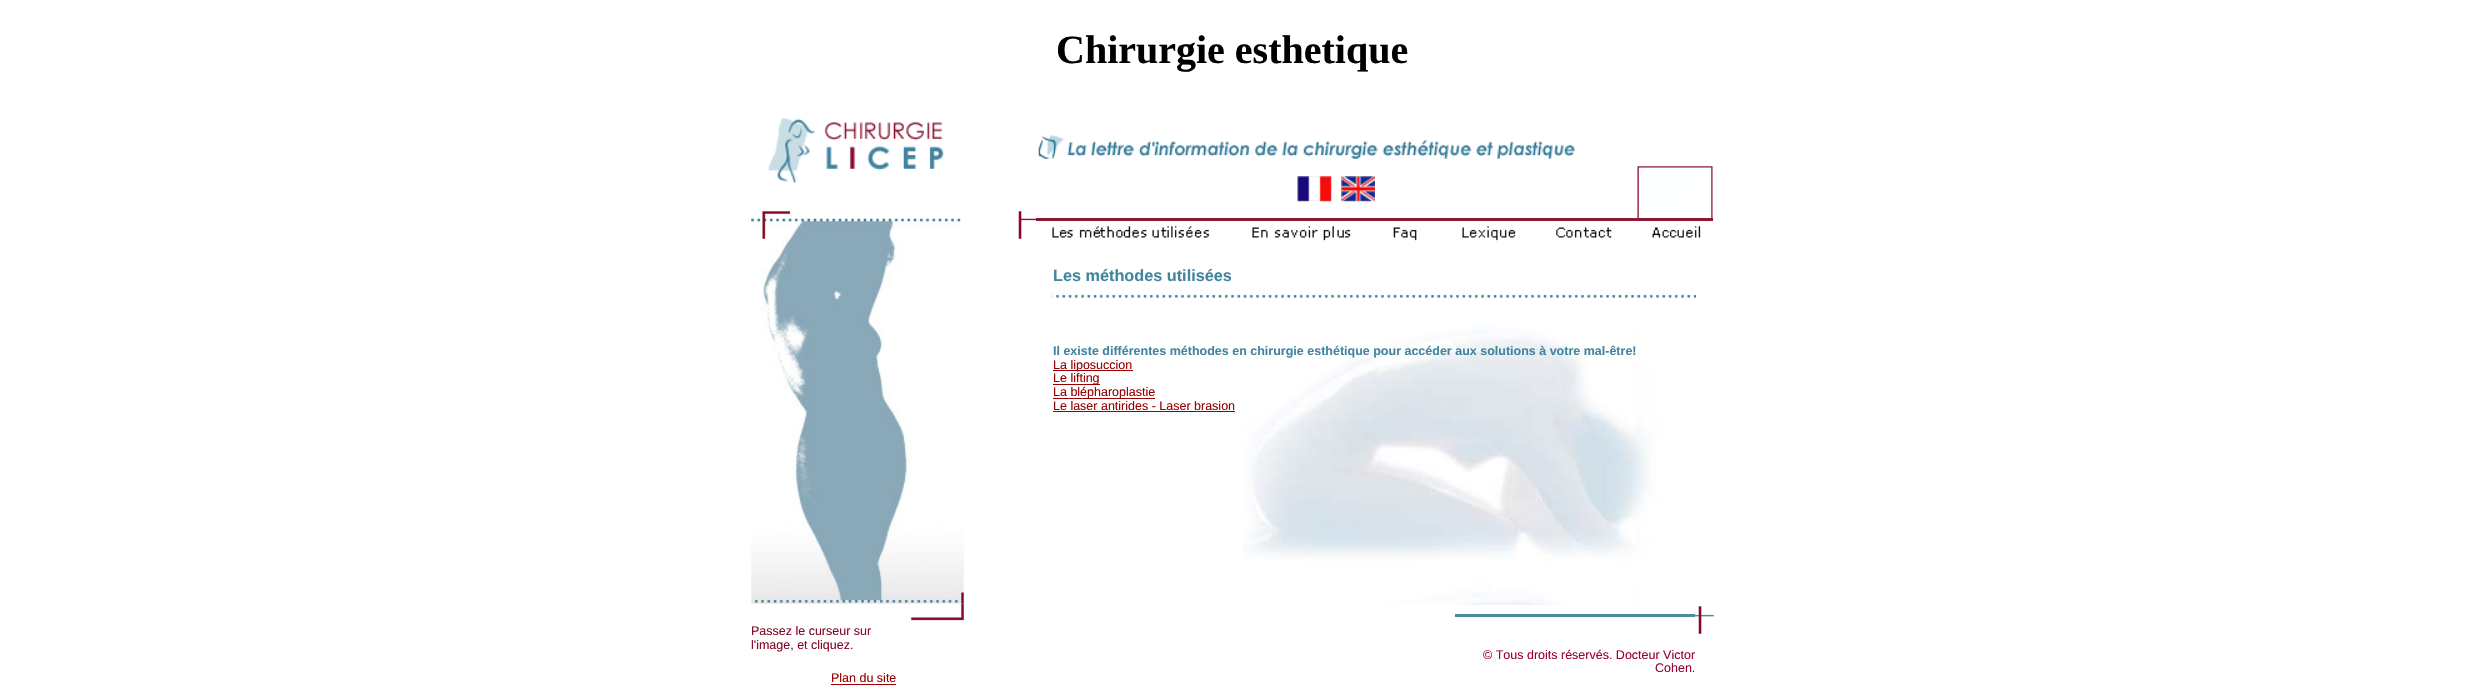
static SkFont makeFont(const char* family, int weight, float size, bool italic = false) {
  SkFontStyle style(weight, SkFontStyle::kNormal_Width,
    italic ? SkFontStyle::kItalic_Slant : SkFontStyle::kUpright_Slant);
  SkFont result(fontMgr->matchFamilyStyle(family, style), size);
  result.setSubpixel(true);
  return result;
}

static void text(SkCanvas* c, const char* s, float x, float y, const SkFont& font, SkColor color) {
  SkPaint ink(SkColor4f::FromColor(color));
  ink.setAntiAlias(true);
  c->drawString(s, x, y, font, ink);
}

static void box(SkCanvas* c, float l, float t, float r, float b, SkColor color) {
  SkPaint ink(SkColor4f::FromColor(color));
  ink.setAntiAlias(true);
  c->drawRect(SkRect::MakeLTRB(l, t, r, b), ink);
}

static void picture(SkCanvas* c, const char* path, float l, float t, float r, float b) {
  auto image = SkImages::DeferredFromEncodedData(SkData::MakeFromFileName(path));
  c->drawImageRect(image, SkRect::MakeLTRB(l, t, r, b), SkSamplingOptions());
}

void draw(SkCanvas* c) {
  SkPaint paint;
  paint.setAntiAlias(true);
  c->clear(0xffffffff);
  SkFont face1 = makeFont("Liberation Serif", 700, 40);
  text(c, "Chirurgie esthetique", 1056, 63, face1, 0xff000000);
  picture(c, "img_01.png", 768, 117, 944, 183);
  picture(c, "img_02.png", 751, 209, 964, 604);
  picture(c, "img_03.png", 911, 603, 964, 621);
  SkFont face2 = makeFont("Liberation Sans", 400, 12.5f);
  text(c, "Passez le curseur sur", 751, 635, face2, 0xff830827);
  text(c, "l'image, et cliquez.", 751, 649, face2, 0xff830827);
  text(c, "Plan du site", 831, 682, face2, 0xff990000);
  box(c, 831, 684, 896, 685, 0xff990000);
  picture(c, "img_04.png", 1038, 135, 1575, 159);
  picture(c, "img_05.png", 1018, 211, 1037, 239);
  picture(c, "img_06.png", 1297, 176, 1332, 202);
  picture(c, "img_07.png", 1341, 176, 1375, 202);
  picture(c, "img_08.png", 1637, 166, 1713, 218);
  box(c, 1036, 218, 1713, 221, 0xff8a1734);
  picture(c, "img_09.png", 1052, 226, 1209, 238);
  picture(c, "img_10.png", 1252, 226, 1351, 241);
  picture(c, "img_11.png", 1393, 227, 1417, 241);
  picture(c, "img_12.png", 1462, 226, 1516, 241);
  picture(c, "img_13.png", 1556, 227, 1612, 238);
  picture(c, "img_14.png", 1652, 226, 1701, 238);
  picture(c, "img_15.png", 1052, 294, 1697, 298);
  SkFont face3 = makeFont("Liberation Sans", 700, 16.25f);
  text(c, "Les méthodes utilisées", 1053, 281, face3, 0xff41859e);
  picture(c, "img_16.png", 1243, 325, 1681, 605);
  SkFont face4 = makeFont("Liberation Sans", 700, 12.5f);
  text(c, "Il existe différentes méthodes en chirurgie esthétique pour accéder aux solutions à votre mal-être!", 1053, 355, face4, 0xff41859e);
  box(c, 1053, 370, 1133, 371, 0xff990000);
  text(c, "La liposuccion", 1053, 369, face2, 0xff990000);
  box(c, 1053, 384, 1100, 385, 0xff990000);
  text(c, "Le lifting", 1053, 382, face2, 0xff990000);
  box(c, 1053, 398, 1155, 399, 0xff990000);
  text(c, "La blépharoplastie", 1053, 396, face2, 0xff990000);
  text(c, "Le laser antirides - Laser brasion", 1053, 410, face2, 0xff990000);
  box(c, 1053, 411, 1235, 412, 0xff990000);
  box(c, 1455, 614, 1695, 617, 0xff50889f);
  picture(c, "img_17.png", 1695, 606, 1714, 634);
  text(c, "© Tous droits réservés. Docteur Victor", 1483, 659, face2, 0xff990033);
  text(c, "Cohen.", 1655, 672, face2, 0xff990033);
}
